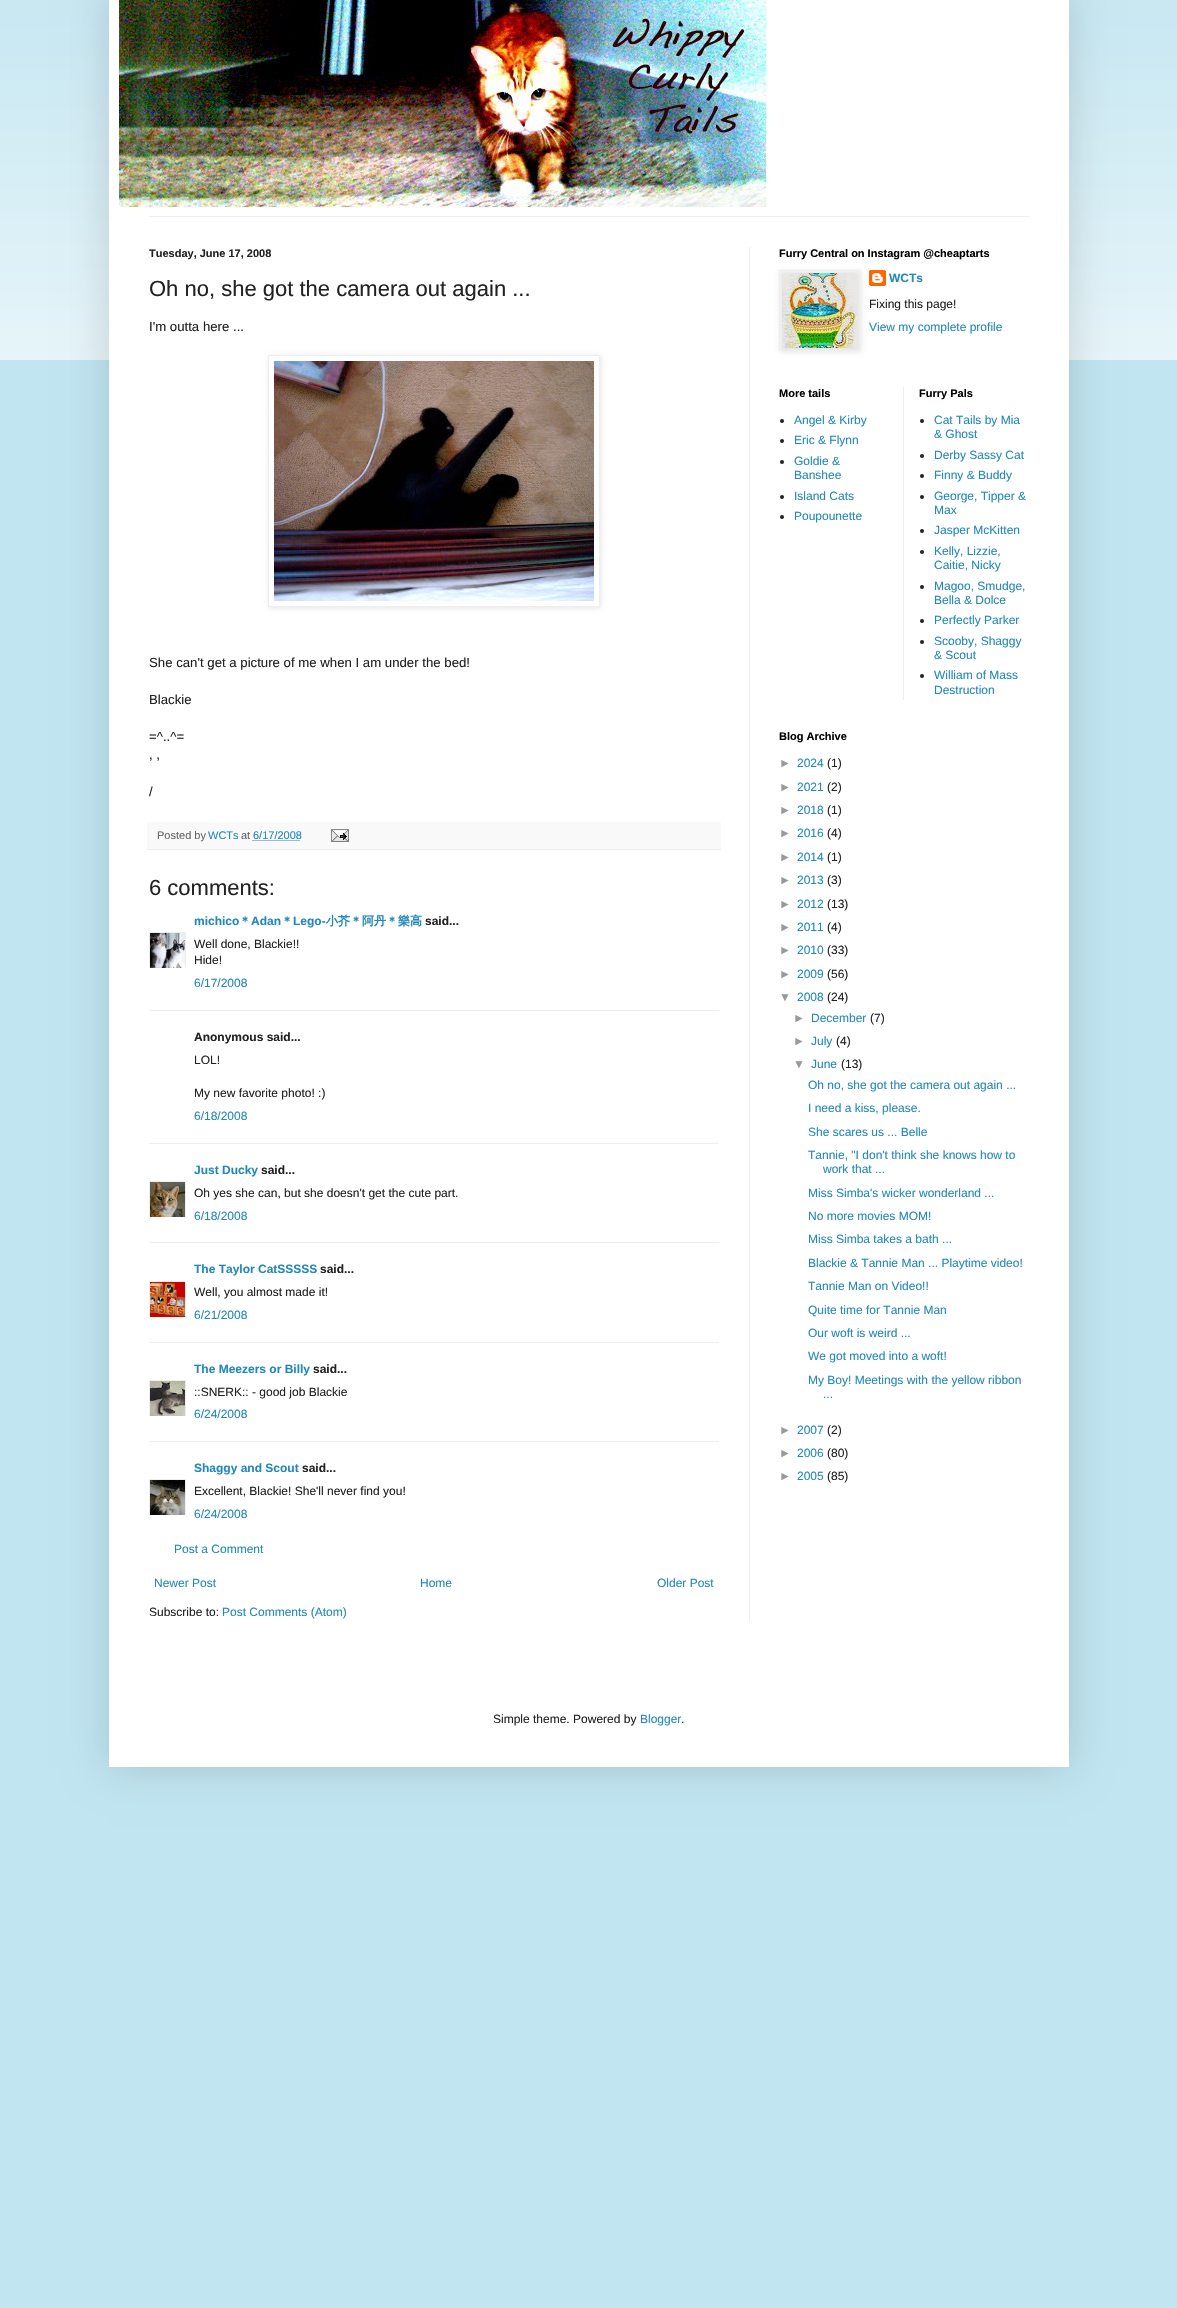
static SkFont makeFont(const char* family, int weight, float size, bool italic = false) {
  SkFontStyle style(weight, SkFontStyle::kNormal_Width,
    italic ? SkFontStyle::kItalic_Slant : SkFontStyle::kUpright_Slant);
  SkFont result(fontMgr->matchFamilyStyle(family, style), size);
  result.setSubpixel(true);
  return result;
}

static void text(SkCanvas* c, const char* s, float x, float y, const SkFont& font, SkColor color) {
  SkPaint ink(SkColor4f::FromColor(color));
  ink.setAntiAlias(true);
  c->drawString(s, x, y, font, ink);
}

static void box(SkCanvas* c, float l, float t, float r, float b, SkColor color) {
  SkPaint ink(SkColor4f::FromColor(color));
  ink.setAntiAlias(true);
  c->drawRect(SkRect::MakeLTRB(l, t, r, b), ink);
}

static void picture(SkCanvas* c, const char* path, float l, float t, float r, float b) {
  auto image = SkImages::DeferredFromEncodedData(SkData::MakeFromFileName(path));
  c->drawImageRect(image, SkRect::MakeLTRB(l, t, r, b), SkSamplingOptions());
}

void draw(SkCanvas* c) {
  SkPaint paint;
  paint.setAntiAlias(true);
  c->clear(0xffc1e5f1);
  picture(c, "img_01.png", 0, 0, 1177, 360);
  paint.setColor(0x26000000);
  paint.setMaskFilter(SkMaskFilter::MakeBlur(kNormal_SkBlurStyle, 20));
  c->drawRect(SkRect::MakeLTRB(109, -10, 1069, 1767), paint);
  paint.setMaskFilter(nullptr);
  box(c, 109, 0, 1069, 1767, 0xffffffff);
  picture(c, "img_02.png", 119, 0, 767, 209);
  box(c, 149, 216, 1029, 217, 0xffeeeeee);
  box(c, 749, 247, 750, 1621, 0xffeeeeee);
  SkFont face1 = makeFont("Liberation Sans", 700, 11);
  text(c, "Tuesday, June 17, 2008", 149, 257, face1, 0xff222222);
  SkFont face2 = makeFont("Liberation Sans", 400, 22);
  text(c, "Oh no, she got the camera out again ...", 149, 296, face2, 0xff222222);
  SkFont face3 = makeFont("Liberation Sans", 400, 13.2f);
  text(c, "I'm outta here ...", 149, 331, face3, 0xff222222);
  c->save();
  c->clipPath(SkPathBuilder(SkPathFillType::kEvenOdd).moveTo(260, 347).lineTo(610, 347).lineTo(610, 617).lineTo(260, 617).close().moveTo(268, 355).lineTo(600, 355).lineTo(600, 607).lineTo(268, 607).close().detach(), true);
  paint.setColor(0x1a000000);
  paint.setMaskFilter(SkMaskFilter::MakeBlur(kNormal_SkBlurStyle, 2.5f));
  c->drawRect(SkRect::MakeLTRB(269, 356, 601, 608), paint);
  paint.setMaskFilter(nullptr);
  c->restore();
  paint.setStyle(SkPaint::kStroke_Style);
  paint.setStrokeWidth(1);
  paint.setColor(0xffeeeeee);
  c->drawRect(SkRect::MakeLTRB(268.5f, 355.5f, 599.5f, 606.5f), paint);
  picture(c, "img_03.png", 274, 361, 594, 601);
  text(c, "She can't get a picture of me when I am under the bed!", 149, 667, face3, 0xff222222);
  text(c, "Blackie", 149, 704, face3, 0xff222222);
  text(c, "=^..^=", 149, 741, face3, 0xff222222);
  text(c, ", ,", 149, 759, face3, 0xff222222);
  text(c, "/", 149, 796, face3, 0xff222222);
  box(c, 147, 822, 721, 849, 0xfff9f9f9);
  box(c, 147, 849, 721, 850, 0xffeeeeee);
  SkFont face4 = makeFont("Liberation Sans", 400, 11);
  text(c, "Posted by", 157, 839, face4, 0xff666666);
  text(c, "WCTs", 208, 839, face4, 0xff2288bb);
  text(c, "at", 241, 839, face4, 0xff666666);
  text(c, "6/17/2008", 253, 839, face4, 0xff2288bb);
  paint.setColor(0xff2288bb);
  paint.setPathEffect(SkDashPathEffect::Make({{1, 1}}, 0));
  c->drawPath(SkPathBuilder().moveTo(252.5f, 840.5f).lineTo(300.5f, 840.5f).detach(), paint);
  paint.setPathEffect(nullptr);
  picture(c, "img_04.png", 331, 829, 349, 842);
  text(c, "6 comments:", 149, 895, face2, 0xff222222);
  SkFont face5 = makeFont("Liberation Sans", 700, 12);
  text(c, "michico", 194, 925, face5, 0xff2288bb);
  SkFont face6 = makeFont("WenQuanYi Zen Hei", 700, 12);
  text(c, "＊", 239, 925, face6, 0xff2288bb);
  text(c, "Adan", 251, 925, face5, 0xff2288bb);
  text(c, "＊", 281, 925, face6, 0xff2288bb);
  text(c, "Lego-", 293, 925, face5, 0xff2288bb);
  text(c, "小芥＊阿丹＊樂高", 326, 925, face6, 0xff2288bb);
  text(c, "said...", 425, 925, face5, 0xff222222);
  c->save();
  c->clipRect(SkRect::MakeLTRB(149, 932, 186, 968));
  paint.setColor(0xffeeeeee);
  c->drawRect(SkRect::MakeLTRB(149.5f, 932.5f, 185.5f, 968.5f), paint);
  c->restore();
  picture(c, "img_05.png", 150, 933, 185, 968);
  SkFont face7 = makeFont("Liberation Sans", 400, 12);
  text(c, "Well done, Blackie!!", 194, 948, face7, 0xff222222);
  text(c, "Hide!", 194, 964, face7, 0xff222222);
  text(c, "6/17/2008", 194, 987, face7, 0xff2288bb);
  box(c, 149, 1010, 719, 1011, 0xffeeeeee);
  text(c, "Anonymous said...", 194, 1041, face5, 0xff222222);
  text(c, "LOL!", 194, 1064, face7, 0xff222222);
  text(c, "My new favorite photo! :)", 194, 1097, face7, 0xff222222);
  text(c, "6/18/2008", 194, 1120, face7, 0xff2288bb);
  box(c, 149, 1143, 719, 1144, 0xffeeeeee);
  text(c, "Just Ducky", 194, 1174, face5, 0xff2288bb);
  text(c, "said...", 261, 1174, face5, 0xff222222);
  c->save();
  c->clipRect(SkRect::MakeLTRB(149, 1181, 186, 1217));
  c->drawRect(SkRect::MakeLTRB(149.5f, 1181.5f, 185.5f, 1217.5f), paint);
  c->restore();
  picture(c, "img_06.png", 150, 1182, 185, 1217);
  text(c, "Oh yes she can, but she doesn't get the cute part.", 194, 1197, face7, 0xff222222);
  text(c, "6/18/2008", 194, 1220, face7, 0xff2288bb);
  box(c, 149, 1242, 719, 1243, 0xffeeeeee);
  text(c, "The Taylor CatSSSSS", 194, 1273, face5, 0xff2288bb);
  text(c, "said...", 320, 1273, face5, 0xff222222);
  c->save();
  c->clipRect(SkRect::MakeLTRB(149, 1281, 186, 1317));
  c->drawRect(SkRect::MakeLTRB(149.5f, 1281.5f, 185.5f, 1317.5f), paint);
  c->restore();
  picture(c, "img_07.png", 150, 1282, 185, 1317);
  text(c, "Well, you almost made it!", 194, 1296, face7, 0xff222222);
  text(c, "6/21/2008", 194, 1319, face7, 0xff2288bb);
  box(c, 149, 1342, 719, 1343, 0xffeeeeee);
  text(c, "The Meezers or Billy", 194, 1373, face5, 0xff2288bb);
  text(c, "said...", 313, 1373, face5, 0xff222222);
  c->save();
  c->clipRect(SkRect::MakeLTRB(149, 1380, 186, 1416));
  c->drawRect(SkRect::MakeLTRB(149.5f, 1380.5f, 185.5f, 1416.5f), paint);
  c->restore();
  picture(c, "img_08.png", 150, 1381, 185, 1416);
  text(c, "::SNERK:: - good job Blackie", 194, 1396, face7, 0xff222222);
  text(c, "6/24/2008", 194, 1418, face7, 0xff2288bb);
  box(c, 149, 1441, 719, 1442, 0xffeeeeee);
  text(c, "Shaggy and Scout", 194, 1472, face5, 0xff2288bb);
  text(c, "said...", 302, 1472, face5, 0xff222222);
  c->save();
  c->clipRect(SkRect::MakeLTRB(149, 1479, 186, 1515));
  c->drawRect(SkRect::MakeLTRB(149.5f, 1479.5f, 185.5f, 1515.5f), paint);
  c->restore();
  picture(c, "img_09.png", 150, 1480, 185, 1515);
  text(c, "Excellent, Blackie! She'll never find you!", 194, 1495, face7, 0xff222222);
  text(c, "6/24/2008", 194, 1518, face7, 0xff2288bb);
  text(c, "Post a Comment", 174, 1553, face7, 0xff2288bb);
  text(c, "Newer Post", 154, 1587, face7, 0xff2288bb);
  text(c, "Home", 420, 1587, face7, 0xff2288bb);
  text(c, "Older Post", 657, 1587, face7, 0xff2288bb);
  text(c, "Subscribe to:", 149, 1616, face7, 0xff222222);
  text(c, "Post Comments (Atom)", 222, 1616, face7, 0xff2288bb);
  text(c, "Furry Central on Instagram @cheaptarts", 779, 257, face1, 0xff000000);
  picture(c, "img_11.png", 869, 270, 886, 286);
  paint.setStyle(SkPaint::kFill_Style);
  paint.setColor(0x1a000000);
  paint.setMaskFilter(SkMaskFilter::MakeBlur(kNormal_SkBlurStyle, 2.5f));
  c->drawRect(SkRect::MakeLTRB(780, 271, 861, 352), paint);
  paint.setMaskFilter(nullptr);
  paint.setStyle(SkPaint::kStroke_Style);
  paint.setColor(0xffeeeeee);
  c->drawRect(SkRect::MakeLTRB(779.5f, 270.5f, 859.5f, 350.5f), paint);
  picture(c, "img_10.png", 782, 273, 857, 348);
  text(c, "WCTs", 889, 282, face5, 0xff2288bb);
  text(c, "Fixing this page!", 869, 308, face7, 0xff222222);
  text(c, "View my complete profile", 869, 331, face7, 0xff2288bb);
  text(c, "More tails", 779, 397, face1, 0xff000000);
  paint.setStyle(SkPaint::kFill_Style);
  paint.setColor(0xff222222);
  c->drawCircle(782, 421, 2, paint);
  text(c, "Angel & Kirby", 794, 424, face7, 0xff2288bb);
  c->drawCircle(782, 441, 2, paint);
  text(c, "Eric & Flynn", 794, 444, face7, 0xff2288bb);
  c->drawCircle(782, 462, 2, paint);
  text(c, "Goldie &", 794, 465, face7, 0xff2288bb);
  text(c, "Banshee", 794, 479, face7, 0xff2288bb);
  c->drawCircle(782, 497, 2, paint);
  text(c, "Island Cats", 794, 500, face7, 0xff2288bb);
  c->drawCircle(782, 517, 2, paint);
  text(c, "Poupounette", 794, 520, face7, 0xff2288bb);
  box(c, 903, 387, 904, 700, 0xffeeeeee);
  text(c, "Furry Pals", 919, 397, face1, 0xff000000);
  c->drawCircle(922, 421, 2, paint);
  text(c, "Cat Tails by Mia", 934, 424, face7, 0xff2288bb);
  text(c, "& Ghost", 934, 438, face7, 0xff2288bb);
  c->drawCircle(922, 456, 2, paint);
  text(c, "Derby Sassy Cat", 934, 459, face7, 0xff2288bb);
  c->drawCircle(922, 476, 2, paint);
  text(c, "Finny & Buddy", 934, 479, face7, 0xff2288bb);
  c->drawCircle(922, 497, 2, paint);
  text(c, "George, Tipper &", 934, 500, face7, 0xff2288bb);
  text(c, "Max", 934, 514, face7, 0xff2288bb);
  c->drawCircle(922, 531, 2, paint);
  text(c, "Jasper McKitten", 934, 534, face7, 0xff2288bb);
  c->drawCircle(922, 552, 2, paint);
  text(c, "Kelly, Lizzie,", 934, 555, face7, 0xff2288bb);
  text(c, "Caitie, Nicky", 934, 569, face7, 0xff2288bb);
  c->drawCircle(922, 587, 2, paint);
  text(c, "Magoo, Smudge,", 934, 590, face7, 0xff2288bb);
  text(c, "Bella & Dolce", 934, 604, face7, 0xff2288bb);
  c->drawCircle(922, 621, 2, paint);
  text(c, "Perfectly Parker", 934, 624, face7, 0xff2288bb);
  c->drawCircle(922, 642, 2, paint);
  text(c, "Scooby, Shaggy", 934, 645, face7, 0xff2288bb);
  text(c, "& Scout", 934, 659, face7, 0xff2288bb);
  c->drawCircle(922, 676, 2, paint);
  text(c, "William of Mass", 934, 679, face7, 0xff2288bb);
  text(c, "Destruction", 934, 694, face7, 0xff2288bb);
  text(c, "Blog Archive", 779, 740, face1, 0xff000000);
  text(c, "►", 779, 767, face7, 0xff999999);
  text(c, "2024", 797, 767, face7, 0xff2288bb);
  text(c, "(1)", 827, 767, face7, 0xff222222);
  text(c, "►", 779, 791, face7, 0xff999999);
  text(c, "2021", 797, 791, face7, 0xff2288bb);
  text(c, "(2)", 827, 791, face7, 0xff222222);
  text(c, "►", 779, 814, face7, 0xff999999);
  text(c, "2018", 797, 814, face7, 0xff2288bb);
  text(c, "(1)", 827, 814, face7, 0xff222222);
  text(c, "►", 779, 837, face7, 0xff999999);
  text(c, "2016", 797, 837, face7, 0xff2288bb);
  text(c, "(4)", 827, 837, face7, 0xff222222);
  text(c, "►", 779, 861, face7, 0xff999999);
  text(c, "2014", 797, 861, face7, 0xff2288bb);
  text(c, "(1)", 827, 861, face7, 0xff222222);
  text(c, "►", 779, 884, face7, 0xff999999);
  text(c, "2013", 797, 884, face7, 0xff2288bb);
  text(c, "(3)", 827, 884, face7, 0xff222222);
  text(c, "►", 779, 908, face7, 0xff999999);
  text(c, "2012", 797, 908, face7, 0xff2288bb);
  text(c, "(13)", 827, 908, face7, 0xff222222);
  text(c, "►", 779, 931, face7, 0xff999999);
  text(c, "2011", 797, 931, face7, 0xff2288bb);
  text(c, "(4)", 827, 931, face7, 0xff222222);
  text(c, "►", 779, 954, face7, 0xff999999);
  text(c, "2010", 797, 954, face7, 0xff2288bb);
  text(c, "(33)", 827, 954, face7, 0xff222222);
  text(c, "►", 779, 978, face7, 0xff999999);
  text(c, "2009", 797, 978, face7, 0xff2288bb);
  text(c, "(56)", 827, 978, face7, 0xff222222);
  text(c, "▼", 779, 1001, face7, 0xff999999);
  text(c, "2008", 797, 1001, face7, 0xff2288bb);
  text(c, "(24)", 827, 1001, face7, 0xff222222);
  text(c, "►", 793, 1022, face7, 0xff999999);
  text(c, "December", 811, 1022, face7, 0xff2288bb);
  text(c, "(7)", 870, 1022, face7, 0xff222222);
  text(c, "►", 793, 1045, face7, 0xff999999);
  text(c, "July", 811, 1045, face7, 0xff2288bb);
  text(c, "(4)", 836, 1045, face7, 0xff222222);
  text(c, "▼", 793, 1068, face7, 0xff999999);
  text(c, "June", 811, 1068, face7, 0xff2288bb);
  text(c, "(13)", 841, 1068, face7, 0xff222222);
  text(c, "Oh no, she got the camera out again ...", 808, 1089, face7, 0xff2288bb);
  text(c, "I need a kiss, please.", 808, 1112, face7, 0xff2288bb);
  text(c, "She scares us ... Belle", 808, 1136, face7, 0xff2288bb);
  text(c, "Tannie, \"I don't think she knows how to", 808, 1159, face7, 0xff2288bb);
  text(c, "work that ...", 823, 1173, face7, 0xff2288bb);
  text(c, "Miss Simba's wicker wonderland ...", 808, 1197, face7, 0xff2288bb);
  text(c, "No more movies MOM!", 808, 1220, face7, 0xff2288bb);
  text(c, "Miss Simba takes a bath ...", 808, 1243, face7, 0xff2288bb);
  text(c, "Blackie & Tannie Man ... Playtime video!", 808, 1267, face7, 0xff2288bb);
  text(c, "Tannie Man on Video!!", 808, 1290, face7, 0xff2288bb);
  text(c, "Quite time for Tannie Man", 808, 1314, face7, 0xff2288bb);
  text(c, "Our woft is weird ...", 808, 1337, face7, 0xff2288bb);
  text(c, "We got moved into a woft!", 808, 1360, face7, 0xff2288bb);
  text(c, "My Boy! Meetings with the yellow ribbon", 808, 1384, face7, 0xff2288bb);
  text(c, "...", 823, 1398, face7, 0xff2288bb);
  text(c, "►", 779, 1434, face7, 0xff999999);
  text(c, "2007", 797, 1434, face7, 0xff2288bb);
  text(c, "(2)", 827, 1434, face7, 0xff222222);
  text(c, "►", 779, 1457, face7, 0xff999999);
  text(c, "2006", 797, 1457, face7, 0xff2288bb);
  text(c, "(80)", 827, 1457, face7, 0xff222222);
  text(c, "►", 779, 1480, face7, 0xff999999);
  text(c, "2005", 797, 1480, face7, 0xff2288bb);
  text(c, "(85)", 827, 1480, face7, 0xff222222);
  text(c, "Simple theme. Powered by", 493, 1723, face7, 0xff222222);
  text(c, "Blogger", 640, 1723, face7, 0xff2288bb);
  text(c, ".", 681, 1723, face7, 0xff222222);
}
